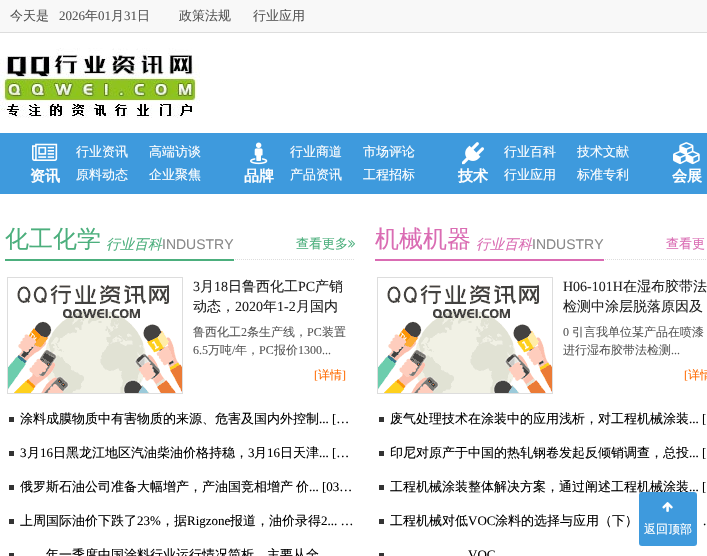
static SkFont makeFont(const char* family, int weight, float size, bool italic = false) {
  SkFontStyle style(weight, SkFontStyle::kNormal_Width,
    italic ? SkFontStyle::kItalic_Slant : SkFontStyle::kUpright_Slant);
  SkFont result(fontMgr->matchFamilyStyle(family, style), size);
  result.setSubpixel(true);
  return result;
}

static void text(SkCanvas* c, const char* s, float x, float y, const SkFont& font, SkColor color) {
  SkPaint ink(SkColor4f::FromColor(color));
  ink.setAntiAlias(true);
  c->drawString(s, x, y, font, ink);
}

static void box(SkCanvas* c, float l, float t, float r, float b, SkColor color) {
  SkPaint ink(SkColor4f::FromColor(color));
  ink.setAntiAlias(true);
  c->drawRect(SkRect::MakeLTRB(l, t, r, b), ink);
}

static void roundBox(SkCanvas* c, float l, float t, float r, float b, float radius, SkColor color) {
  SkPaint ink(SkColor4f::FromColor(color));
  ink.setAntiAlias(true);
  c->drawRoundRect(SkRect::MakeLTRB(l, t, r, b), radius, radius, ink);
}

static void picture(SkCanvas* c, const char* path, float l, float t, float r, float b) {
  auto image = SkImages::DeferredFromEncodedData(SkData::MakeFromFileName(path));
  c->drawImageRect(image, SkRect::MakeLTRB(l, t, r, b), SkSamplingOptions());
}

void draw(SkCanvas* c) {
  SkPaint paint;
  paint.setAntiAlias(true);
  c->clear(0xffffffff);
  box(c, 0, 0, 707, 32, 0xfff8f8f8);
  box(c, 0, 32, 707, 33, 0xffdddddd);
  SkFont face1 = makeFont("WenQuanYi Zen Hei", 500, 13);
  text(c, "今天是", 10, 20, face1, 0xff565656);
  SkFont face2 = makeFont("Liberation Serif", 400, 13);
  text(c, "2026", 59, 20, face2, 0xff565656);
  text(c, "年", 85, 20, face1, 0xff565656);
  text(c, "01", 98, 20, face2, 0xff565656);
  text(c, "月", 111, 20, face1, 0xff565656);
  text(c, "31", 124, 20, face2, 0xff565656);
  text(c, "日", 137, 20, face1, 0xff565656);
  text(c, "政策法规", 179, 20, face1, 0xff565656);
  text(c, "行业应用", 253, 20, face1, 0xff565656);
  picture(c, "img_01.png", 0, 48, 200, 118);
  box(c, 0, 133, 707, 194, 0xff3e9add);
  picture(c, "img_02.png", 32, 143, 58, 161);
  SkFont face3 = makeFont("WenQuanYi Zen Hei", 700, 15);
  text(c, "资讯", 30, 181, face3, 0xffffffff);
  text(c, "行业资讯", 76, 156, face1, 0xffffffff);
  text(c, "高端访谈", 149, 156, face1, 0xffffffff);
  text(c, "原料动态", 76, 179, face1, 0xffffffff);
  text(c, "企业聚焦", 149, 179, face1, 0xffffffff);
  picture(c, "img_03.png", 250, 142, 268, 165);
  text(c, "品牌", 244, 181, face3, 0xffffffff);
  text(c, "行业商道", 290, 156, face1, 0xffffffff);
  text(c, "市场评论", 363, 156, face1, 0xffffffff);
  text(c, "产品资讯", 290, 179, face1, 0xffffffff);
  text(c, "工程招标", 363, 179, face1, 0xffffffff);
  picture(c, "img_04.png", 462, 142, 484, 165);
  text(c, "技术", 458, 181, face3, 0xffffffff);
  text(c, "行业百科", 504, 156, face1, 0xffffffff);
  text(c, "技术文献", 577, 156, face1, 0xffffffff);
  text(c, "行业应用", 504, 179, face1, 0xffffffff);
  text(c, "标准专利", 577, 179, face1, 0xffffffff);
  picture(c, "img_05.png", 673, 142, 700, 165);
  text(c, "会展", 672, 181, face3, 0xffffffff);
  paint.setStyle(SkPaint::kStroke_Style);
  paint.setStrokeWidth(1);
  paint.setColor(0xffdddddd);
  paint.setPathEffect(SkDashPathEffect::Make({{1, 1}}, 0));
  c->drawPath(SkPathBuilder().moveTo(5, 259.5f).lineTo(355, 259.5f).detach(), paint);
  paint.setPathEffect(nullptr);
  box(c, 5, 259, 234, 261, 0xff4caf7d);
  SkFont face4 = makeFont("WenQuanYi Zen Hei", 500, 24);
  text(c, "化工化学", 5, 247, face4, 0xff4caf7d);
  SkFont face5 = makeFont("WenQuanYi Zen Hei", 500, 14, true);
  text(c, "行业百科", 106, 249, face5, 0xff4caf7d);
  SkFont face6 = makeFont("Liberation Sans", 400, 14);
  text(c, "INDUSTRY", 162, 249, face6, 0xff898989);
  text(c, "查看更多", 296, 248, face1, 0xff4caf7d);
  picture(c, "img_06.png", 348, 240, 356, 248);
  c->drawRect(SkRect::MakeLTRB(7.5f, 277.5f, 182.5f, 393.5f), paint);
  picture(c, "img_07.png", 8, 285, 182, 393);
  SkFont face7 = makeFont("Liberation Serif", 400, 14);
  text(c, "3", 193, 291, face7, 0xff222222);
  SkFont face8 = makeFont("WenQuanYi Zen Hei", 500, 14);
  text(c, "月", 200, 291, face8, 0xff222222);
  text(c, "18", 214, 291, face7, 0xff222222);
  text(c, "日鲁西化工", 228, 291, face8, 0xff222222);
  text(c, "PC", 298, 291, face7, 0xff222222);
  text(c, "产销", 315, 291, face8, 0xff222222);
  text(c, "动态，", 193, 311, face8, 0xff222222);
  text(c, "2020", 235, 311, face7, 0xff222222);
  text(c, "年", 263, 311, face8, 0xff222222);
  text(c, "1-2", 277, 311, face7, 0xff222222);
  text(c, "月国内", 296, 311, face8, 0xff222222);
  SkFont face9 = makeFont("WenQuanYi Zen Hei", 500, 12);
  text(c, "鲁西化工", 193, 336, face9, 0xff565656);
  SkFont face10 = makeFont("Liberation Serif", 400, 12);
  text(c, "2", 241, 336, face10, 0xff565656);
  text(c, "条生产线，", 247, 336, face9, 0xff565656);
  text(c, "PC", 307, 336, face10, 0xff565656);
  text(c, "装置", 322, 336, face9, 0xff565656);
  text(c, "6.5", 193, 354, face10, 0xff565656);
  text(c, "万吨", 208, 354, face9, 0xff565656);
  text(c, "/", 232, 354, face10, 0xff565656);
  text(c, "年，", 235, 354, face9, 0xff565656);
  text(c, "PC", 259, 354, face10, 0xff565656);
  text(c, "报价", 274, 354, face9, 0xff565656);
  text(c, "1300...", 298, 354, face10, 0xff565656);
  text(c, "[", 314, 379, face10, 0xffff6a00);
  text(c, "详情", 318, 379, face9, 0xffff6a00);
  text(c, "]", 342, 379, face10, 0xffff6a00);
  box(c, 9, 417, 14, 422, 0xff333333);
  text(c, "涂料成膜物质中有害物质的来源、危害及国内外控制", 20, 423, face1, 0xff000000);
  text(c, "... […", 319, 423, face2, 0xff000000);
  box(c, 9, 451, 14, 456, 0xff333333);
  text(c, "3", 20, 457, face2, 0xff000000);
  text(c, "月", 27, 457, face1, 0xff000000);
  text(c, "16", 40, 457, face2, 0xff000000);
  text(c, "日黑龙江地区汽油柴油价格持稳，", 53, 457, face1, 0xff000000);
  text(c, "3", 248, 457, face2, 0xff000000);
  text(c, "月", 254, 457, face1, 0xff000000);
  text(c, "16", 267, 457, face2, 0xff000000);
  text(c, "日天津", 280, 457, face1, 0xff000000);
  text(c, "... […", 319, 457, face2, 0xff000000);
  box(c, 9, 485, 14, 490, 0xff333333);
  text(c, "俄罗斯石油公司准备大幅增产，产油国竞相增产", 20, 491, face1, 0xff000000);
  text(c, "价", 296, 491, face1, 0xff000000);
  text(c, "... [03…", 309, 491, face2, 0xff000000);
  box(c, 9, 519, 14, 524, 0xff333333);
  text(c, "上周国际油价下跌了", 20, 525, face1, 0xff000000);
  text(c, "23%", 137, 525, face2, 0xff000000);
  text(c, "，据", 161, 525, face1, 0xff000000);
  text(c, "Rigzone", 187, 525, face2, 0xff000000);
  text(c, "报道，油价录得", 230, 525, face1, 0xff000000);
  text(c, "2... …", 321, 525, face2, 0xff000000);
  box(c, 9, 553, 14, 556, 0xff333333);
  text(c, "年一季度中国涂料行业运行情况简析，主要从全", 46, 559, face1, 0xff000000);
  paint.setPathEffect(SkDashPathEffect::Make({{1, 1}}, 0));
  c->drawPath(SkPathBuilder().moveTo(375, 259.5f).lineTo(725, 259.5f).detach(), paint);
  paint.setPathEffect(nullptr);
  box(c, 375, 259, 604, 261, 0xffda6cb3);
  text(c, "机械机器", 375, 247, face4, 0xffda6cb3);
  text(c, "行业百科", 476, 249, face5, 0xffda6cb3);
  text(c, "INDUSTRY", 532, 249, face6, 0xff898989);
  text(c, "查看更", 666, 248, face1, 0xffda6cb3);
  c->drawRect(SkRect::MakeLTRB(377.5f, 277.5f, 552.5f, 393.5f), paint);
  picture(c, "img_07.png", 378, 285, 552, 393);
  text(c, "H06-101H", 563, 291, face7, 0xff222222);
  text(c, "在湿布胶带法", 623, 291, face8, 0xff222222);
  text(c, "检测中涂层脱落原因及", 563, 311, face8, 0xff222222);
  text(c, "0", 563, 336, face10, 0xff565656);
  text(c, "引言我单位某产品在喷漆", 572, 336, face9, 0xff565656);
  text(c, "进行湿布胶带法检测", 563, 354, face9, 0xff565656);
  text(c, "...", 671, 354, face10, 0xff565656);
  text(c, "[", 684, 379, face10, 0xffff6a00);
  text(c, "详情", 688, 379, face9, 0xffff6a00);
  box(c, 379, 417, 384, 422, 0xff333333);
  text(c, "废气处理技术在涂装中的应用浅析，对工程机械涂装", 390, 423, face1, 0xff000000);
  text(c, "... [", 689, 423, face2, 0xff000000);
  box(c, 379, 451, 384, 456, 0xff333333);
  text(c, "印尼对原产于中国的热轧钢卷发起反倾销调查，总投", 390, 457, face1, 0xff000000);
  text(c, "... [", 689, 457, face2, 0xff000000);
  box(c, 379, 485, 384, 490, 0xff333333);
  text(c, "工程机械涂装整体解决方案，通过阐述工程机械涂装", 390, 491, face1, 0xff000000);
  text(c, "... [", 689, 491, face2, 0xff000000);
  box(c, 379, 519, 384, 524, 0xff333333);
  text(c, "工程机械对低", 390, 525, face1, 0xff000000);
  text(c, "VOC", 468, 525, face2, 0xff000000);
  text(c, "涂料的选择与应用（下）", 495, 525, face1, 0xff000000);
  text(c, ".", 703, 525, face2, 0xff000000);
  box(c, 379, 553, 384, 556, 0xff333333);
  text(c, "VOC", 468, 559, face2, 0xff000000);
  roundBox(c, 639, 492, 697, 546, 3, 0xff3e9add);
  picture(c, "img_08.png", 662, 502, 673, 512);
  text(c, "返回顶部", 644, 533, face9, 0xffffffff);
}
